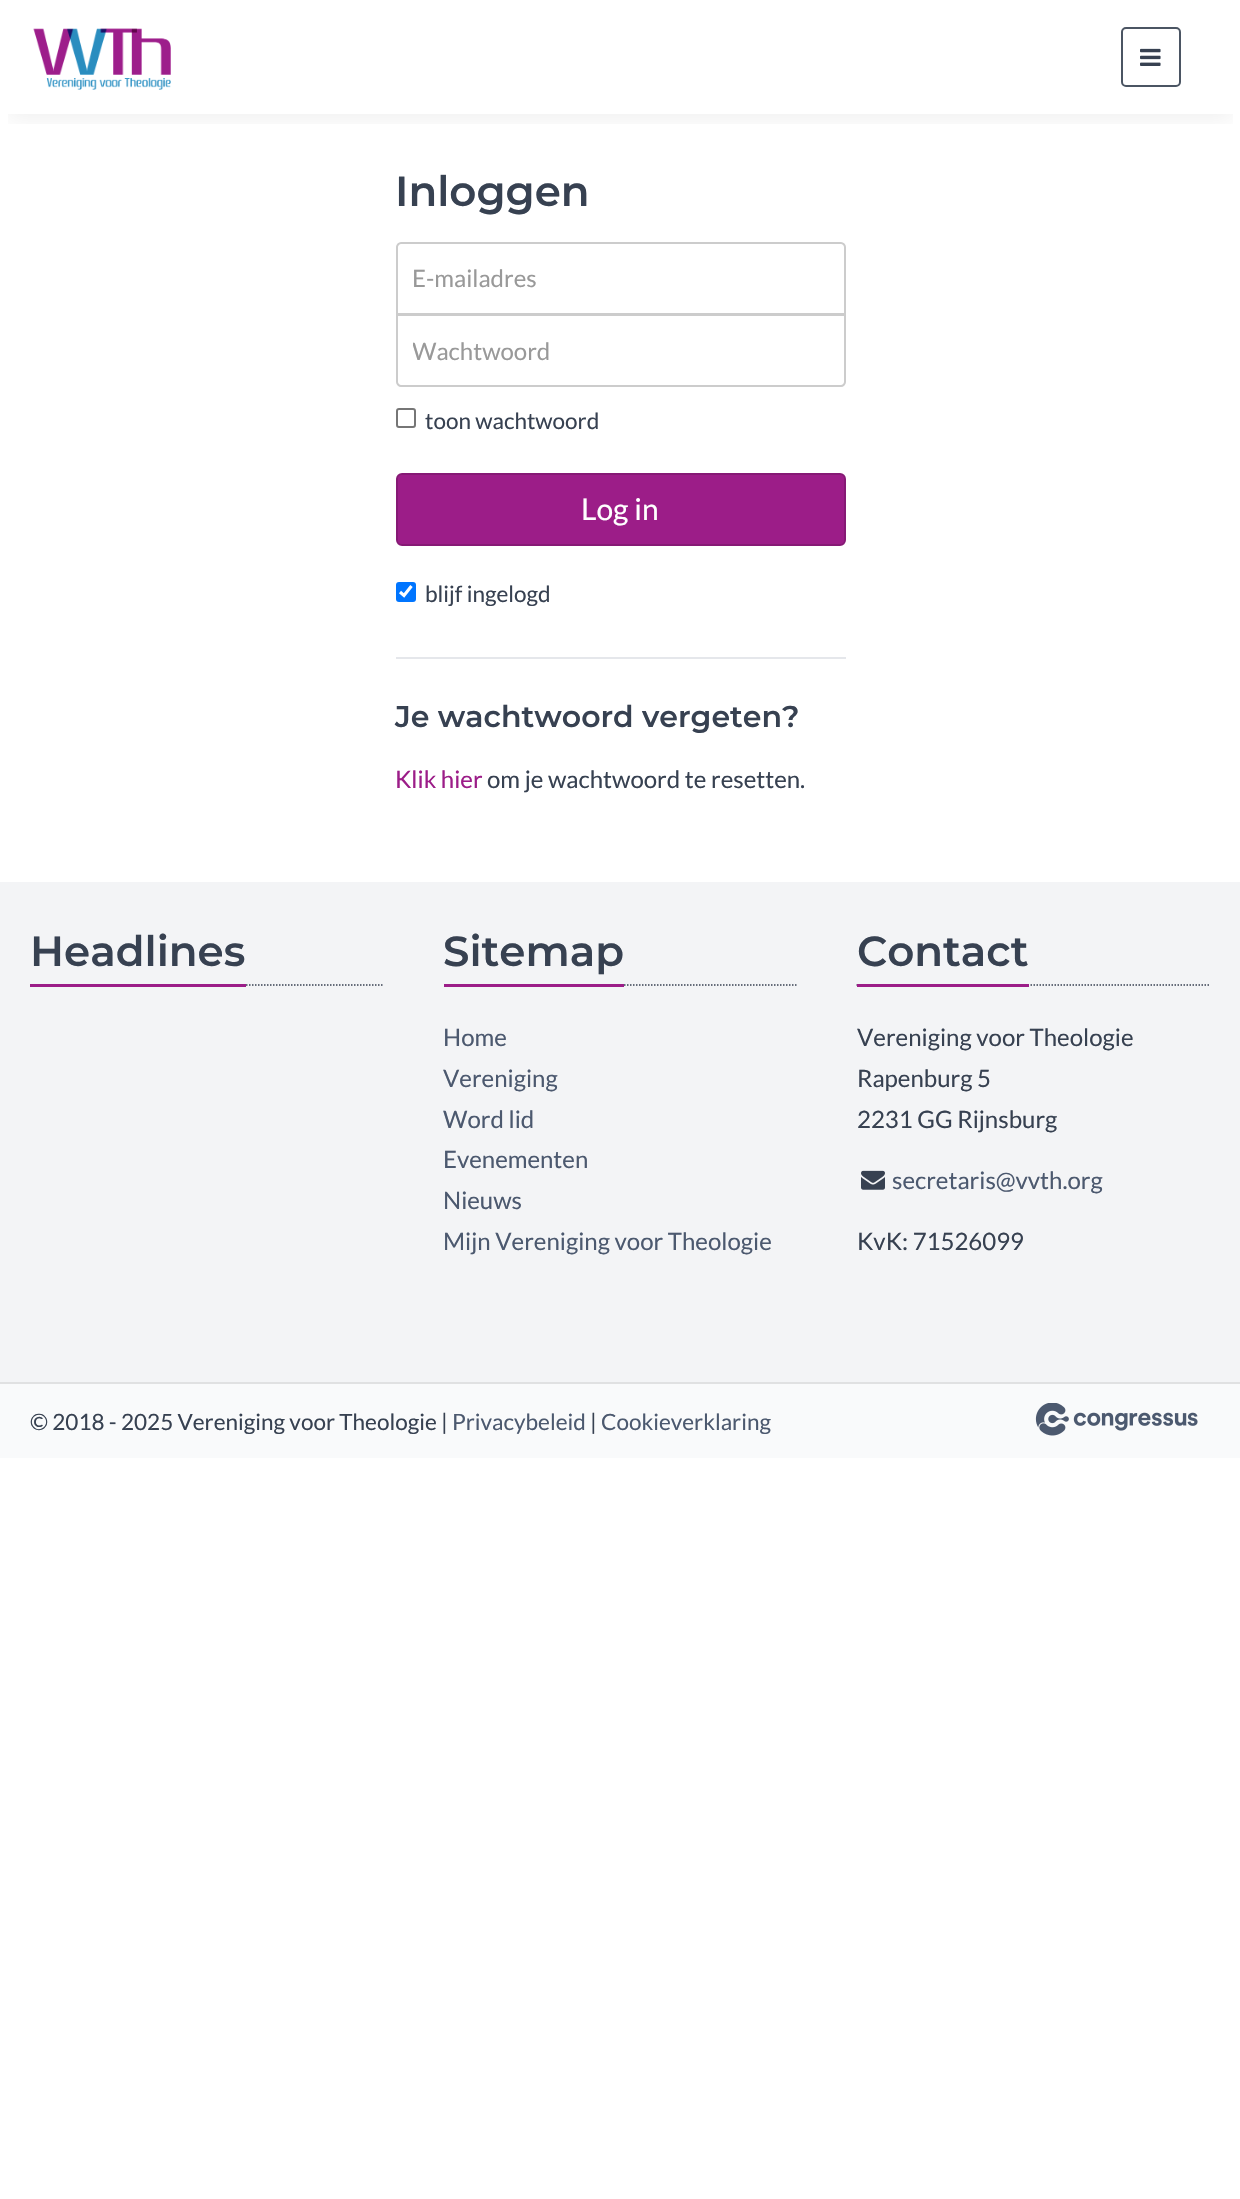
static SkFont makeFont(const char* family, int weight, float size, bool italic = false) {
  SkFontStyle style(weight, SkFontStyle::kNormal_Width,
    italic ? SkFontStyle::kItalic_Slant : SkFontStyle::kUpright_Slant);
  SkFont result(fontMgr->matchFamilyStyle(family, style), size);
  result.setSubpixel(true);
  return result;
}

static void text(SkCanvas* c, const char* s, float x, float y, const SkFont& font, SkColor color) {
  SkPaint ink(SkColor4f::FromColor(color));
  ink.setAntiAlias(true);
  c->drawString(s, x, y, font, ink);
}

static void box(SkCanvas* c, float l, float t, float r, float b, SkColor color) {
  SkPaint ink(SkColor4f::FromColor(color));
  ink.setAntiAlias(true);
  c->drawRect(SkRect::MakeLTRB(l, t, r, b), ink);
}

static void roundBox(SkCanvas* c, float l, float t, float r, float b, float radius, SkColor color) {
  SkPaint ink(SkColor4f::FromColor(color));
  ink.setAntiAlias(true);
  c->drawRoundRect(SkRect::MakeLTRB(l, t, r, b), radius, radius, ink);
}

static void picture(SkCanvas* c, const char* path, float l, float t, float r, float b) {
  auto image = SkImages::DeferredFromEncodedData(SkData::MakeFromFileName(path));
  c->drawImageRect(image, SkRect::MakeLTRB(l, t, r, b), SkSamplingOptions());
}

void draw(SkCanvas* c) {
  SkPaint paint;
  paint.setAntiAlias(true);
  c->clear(0xffffffff);
  c->save();
  c->clipRect(SkRect::MakeLTRB(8, 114, 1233, 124));
  paint.setColor(0x0f000000);
  paint.setMaskFilter(SkMaskFilter::MakeBlur(kNormal_SkBlurStyle, 11));
  c->drawRect(SkRect::MakeLTRB(8, 20, 1233, 119), paint);
  paint.setMaskFilter(nullptr);
  c->restore();
  picture(c, "img_01.png", 33, 28, 171, 90);
  paint.setStyle(SkPaint::kStroke_Style);
  paint.setStrokeWidth(2);
  paint.setColor(0xff4b5563);
  c->drawRoundRect(SkRect::MakeLTRB(1122, 28, 1180, 86), 4, 4, paint);
  picture(c, "img_02.png", 1140, 48, 1161, 66);
  SkFont face1 = makeFont("Montserrat", 600, 42);
  text(c, "Inloggen", 395, 206, face1, 0xff374151);
  paint.setColor(0xffcccccc);
  c->drawPath(SkPathBuilder().moveTo(401, 243).lineTo(841, 243).cubicTo(843, 243, 845, 245, 845, 247).lineTo(845, 314).lineTo(397, 314).lineTo(397, 247).cubicTo(397, 245, 399, 243, 401, 243).close().detach(), paint);
  SkFont face2 = makeFont("Lato", 400, 24);
  text(c, "E-mailadres", 412, 287, face2, 0xff999999);
  paint.setStyle(SkPaint::kFill_Style);
  paint.setColor(0xffffffff);
  c->drawPath(SkPathBuilder().moveTo(397, 315).lineTo(845, 315).lineTo(845, 382).cubicTo(845, 384, 843, 386, 841, 386).lineTo(401, 386).cubicTo(399, 386, 397, 384, 397, 382).close().detach(), paint);
  paint.setStyle(SkPaint::kStroke_Style);
  paint.setColor(0xffcccccc);
  c->drawPath(SkPathBuilder().moveTo(397, 315).lineTo(845, 315).lineTo(845, 382).cubicTo(845, 384, 843, 386, 841, 386).lineTo(401, 386).cubicTo(399, 386, 397, 384, 397, 382).close().detach(), paint);
  c->save();
  c->clipRect(SkRect::MakeLTRB(413, 336, 830, 365));
  text(c, "Wachtwoord", 412, 360, face2, 0xff999999);
  c->restore();
  paint.setColor(0xff767676);
  c->drawRoundRect(SkRect::MakeLTRB(397, 409, 415, 427), 2, 2, paint);
  SkFont face3 = makeFont("Lato", 400, 22.5f);
  text(c, "toon wachtwoord", 425, 429, face3, 0xff374151);
  paint.setStyle(SkPaint::kFill_Style);
  paint.setColor(0xff9c1d88);
  c->drawRoundRect(SkRect::MakeLTRB(397, 474, 845, 545), 5, 5, paint);
  paint.setStyle(SkPaint::kStroke_Style);
  paint.setColor(0xff861975);
  c->drawRoundRect(SkRect::MakeLTRB(397, 474, 845, 545), 5, 5, paint);
  SkFont face4 = makeFont("Lato", 400, 30);
  text(c, "Log in", 581, 520, face4, 0xffffffff);
  roundBox(c, 396, 582, 416, 602, 3, 0xff0075ff);
  paint.setStrokeWidth(3.1f);
  paint.setColor(0xffffffff);
  c->drawPath(SkPathBuilder().moveTo(400, 592).lineTo(404, 595.5f).lineTo(411.5f, 586).detach(), paint);
  text(c, "blijf ingelogd", 425, 602, face3, 0xff374151);
  box(c, 396, 657, 846, 659, 0xffe5e7eb);
  SkFont face5 = makeFont("Montserrat", 600, 30);
  text(c, "Je wachtwoord vergeten?", 395, 727, face5, 0xff374151);
  text(c, "Klik hier", 395, 788, face2, 0xff9c1d88);
  text(c, "om je wachtwoord te resetten.", 487, 788, face2, 0xff374151);
  box(c, 0, 882, 1240, 1382, 0xfff3f4f6);
  paint.setStrokeWidth(1.5f);
  paint.setColor(0xff374151);
  paint.setPathEffect(SkDashPathEffect::Make({{1.5f, 1.5f}}, 0));
  c->drawPath(SkPathBuilder().moveTo(30, 985).lineTo(384, 985).detach(), paint);
  paint.setPathEffect(nullptr);
  box(c, 30, 984, 246, 987, 0xff9c1d88);
  text(c, "Headlines", 30, 966, face1, 0xff374151);
  paint.setPathEffect(SkDashPathEffect::Make({{1.5f, 1.5f}}, 0));
  c->drawPath(SkPathBuilder().moveTo(444, 985).lineTo(796.5f, 985).detach(), paint);
  paint.setPathEffect(nullptr);
  box(c, 444, 984, 624, 987, 0xff9c1d88);
  text(c, "Sitemap", 443, 966, face1, 0xff374151);
  text(c, "Home", 443, 1046, face2, 0xff4c596f);
  text(c, "Vereniging", 443, 1087, face2, 0xff4c596f);
  text(c, "Word lid", 443, 1128, face2, 0xff4c596f);
  text(c, "Evenementen", 443, 1168, face2, 0xff4c596f);
  text(c, "Nieuws", 443, 1209, face2, 0xff4c596f);
  text(c, "Mijn Vereniging voor Theologie", 443, 1250, face2, 0xff4c596f);
  paint.setPathEffect(SkDashPathEffect::Make({{1.5f, 1.5f}}, 0));
  c->drawPath(SkPathBuilder().moveTo(856.5f, 985).lineTo(1210.5f, 985).detach(), paint);
  paint.setPathEffect(nullptr);
  box(c, 857, 984, 1029, 987, 0xff9c1d88);
  text(c, "Contact", 857, 966, face1, 0xff374151);
  text(c, "Vereniging voor Theologie", 857, 1046, face2, 0xff374151);
  text(c, "Rapenburg 5", 857, 1087, face2, 0xff374151);
  text(c, "2231 GG Rijnsburg", 857, 1128, face2, 0xff374151);
  picture(c, "img_03.png", 861, 1170, 885, 1190);
  text(c, "secretaris@vvth.org", 892, 1189, face2, 0xff4c596f);
  text(c, "KvK: 71526099", 857, 1250, face2, 0xff374151);
  box(c, 0, 1384, 1240, 1458, 0xfff9fafb);
  box(c, 0, 1382, 1240, 1384, 0xffe0e1e2);
  text(c, "© 2018 - 2025 Vereniging voor Theologie |", 30, 1430, face3, 0xff374151);
  text(c, "Privacybeleid", 452, 1430, face3, 0xff4c596f);
  text(c, "|", 590, 1430, face3, 0xff374151);
  text(c, "Cookieverklaring", 601, 1430, face3, 0xff4c596f);
  picture(c, "img_04.png", 1035, 1403, 1198, 1436);
}
